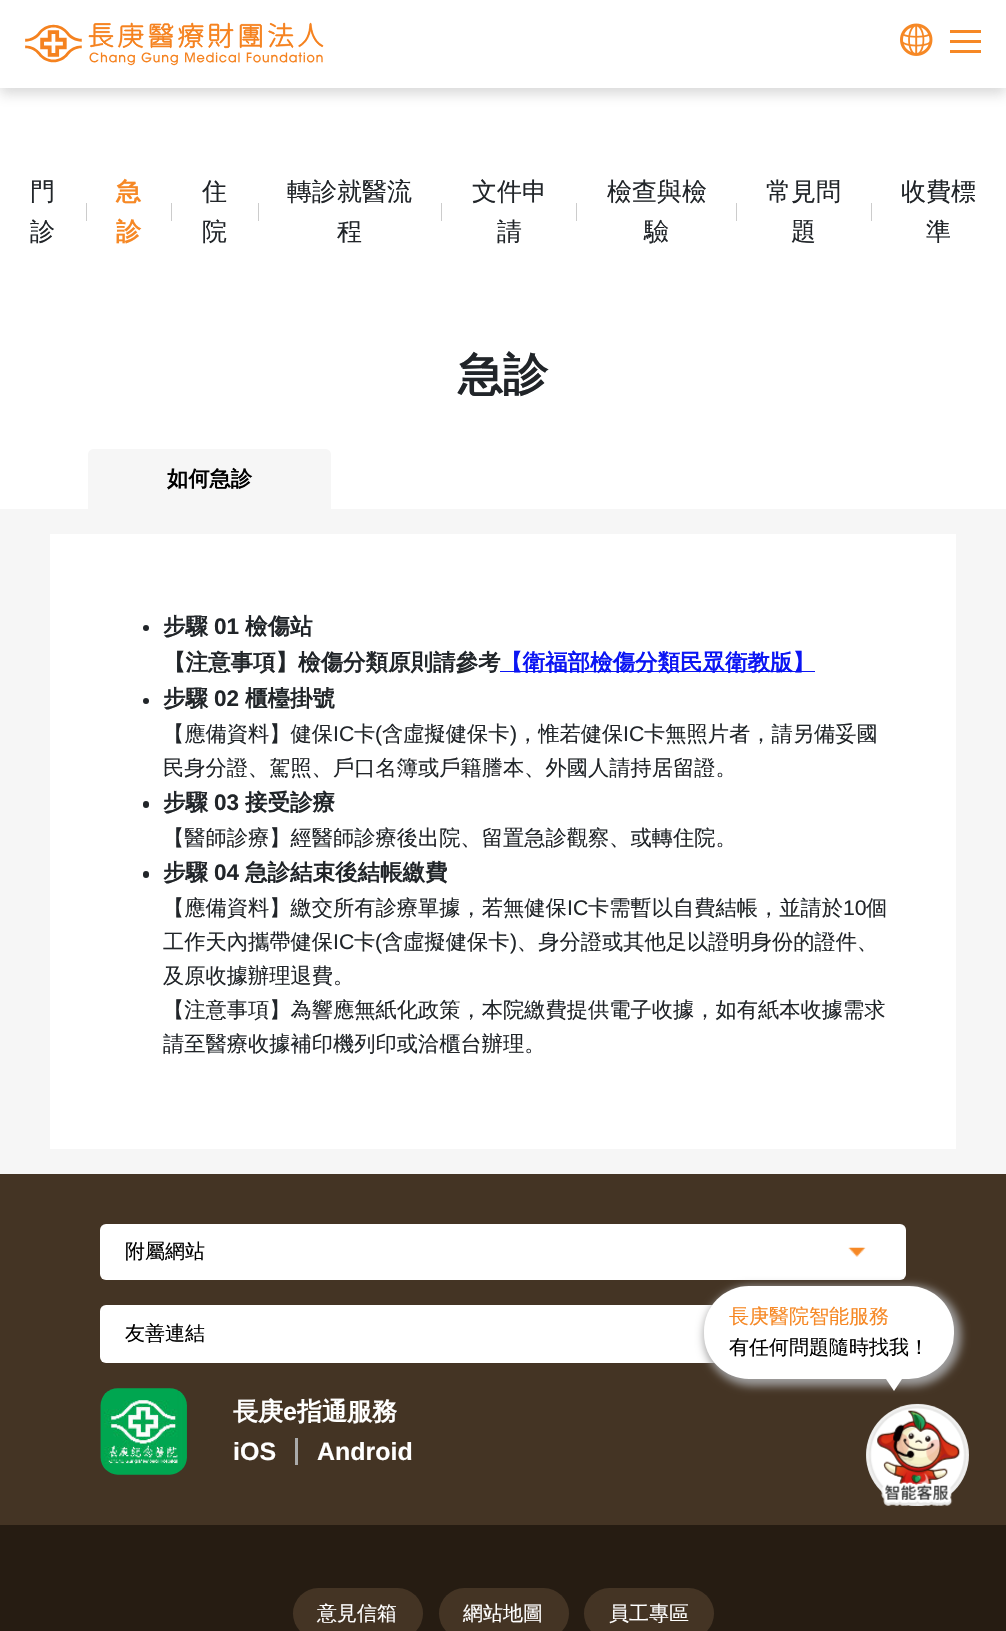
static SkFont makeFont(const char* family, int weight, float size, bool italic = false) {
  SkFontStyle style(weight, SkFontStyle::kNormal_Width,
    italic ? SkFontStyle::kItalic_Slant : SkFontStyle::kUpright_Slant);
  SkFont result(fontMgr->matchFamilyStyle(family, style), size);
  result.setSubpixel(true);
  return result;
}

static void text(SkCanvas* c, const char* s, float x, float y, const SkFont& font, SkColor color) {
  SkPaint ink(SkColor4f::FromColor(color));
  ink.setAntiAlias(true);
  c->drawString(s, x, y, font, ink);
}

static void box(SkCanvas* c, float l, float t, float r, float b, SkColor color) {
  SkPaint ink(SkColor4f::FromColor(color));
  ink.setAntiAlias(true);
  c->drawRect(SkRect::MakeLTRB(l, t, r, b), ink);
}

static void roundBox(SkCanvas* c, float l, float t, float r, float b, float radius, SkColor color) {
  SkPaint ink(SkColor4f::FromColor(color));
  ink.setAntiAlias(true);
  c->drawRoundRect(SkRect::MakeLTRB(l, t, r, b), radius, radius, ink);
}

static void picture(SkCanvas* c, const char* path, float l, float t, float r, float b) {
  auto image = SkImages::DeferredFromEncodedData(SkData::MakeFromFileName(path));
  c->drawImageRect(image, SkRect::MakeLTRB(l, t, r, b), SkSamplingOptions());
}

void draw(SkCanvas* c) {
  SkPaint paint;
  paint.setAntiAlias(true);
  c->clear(0xffffffff);
  paint.setColor(0x4d808080);
  paint.setMaskFilter(SkMaskFilter::MakeBlur(kNormal_SkBlurStyle, 6));
  c->drawRect(SkRect::MakeLTRB(0, 6, 1006, 94), paint);
  paint.setMaskFilter(nullptr);
  box(c, 0, 0, 1006, 88, 0xffffffff);
  picture(c, "img_01.png", 25, 22, 324, 66);
  picture(c, "img_02.png", 900, 23, 933, 56);
  box(c, 950, 30, 981, 33, 0xfff68825);
  box(c, 950, 40, 981, 43, 0xfff68825);
  box(c, 950, 50, 981, 53, 0xfff68825);
  SkFont face1 = makeFont("WenQuanYi Zen Hei", 500, 25);
  text(c, "門", 30, 200, face1, 0xff212529);
  text(c, "診", 30, 240, face1, 0xff212529);
  box(c, 86, 203, 87, 221, 0xffcccccc);
  SkFont face2 = makeFont("WenQuanYi Zen Hei", 700, 25);
  text(c, "急", 116, 200, face2, 0xfff68825);
  text(c, "診", 116, 240, face2, 0xfff68825);
  box(c, 171, 203, 172, 221, 0xffcccccc);
  text(c, "住", 202, 200, face1, 0xff212529);
  text(c, "院", 202, 240, face1, 0xff212529);
  box(c, 258, 203, 259, 221, 0xffcccccc);
  text(c, "轉診就醫流", 287, 200, face1, 0xff212529);
  text(c, "程", 337, 240, face1, 0xff212529);
  box(c, 441, 203, 442, 221, 0xffcccccc);
  text(c, "文件申", 472, 200, face1, 0xff212529);
  text(c, "請", 497, 240, face1, 0xff212529);
  box(c, 576, 203, 577, 221, 0xffcccccc);
  text(c, "檢查與檢", 607, 200, face1, 0xff212529);
  text(c, "驗", 644, 240, face1, 0xff212529);
  box(c, 736, 203, 737, 221, 0xffcccccc);
  text(c, "常見問", 766, 200, face1, 0xff212529);
  text(c, "題", 791, 240, face1, 0xff212529);
  box(c, 871, 203, 872, 221, 0xffcccccc);
  text(c, "收費標", 901, 200, face1, 0xff212529);
  text(c, "準", 926, 240, face1, 0xff212529);
  SkFont face3 = makeFont("WenQuanYi Zen Hei", 700, 45);
  text(c, "急診", 458, 390, face3, 0xff212529);
  paint.setColor(0xfff6f6f6);
  c->drawPath(SkPathBuilder().moveTo(94, 449).lineTo(325, 449).cubicTo(328.5f, 449, 331, 451.5f, 331, 455).lineTo(331, 509).lineTo(88, 509).lineTo(88, 455).cubicTo(88, 451.5f, 90.5f, 449, 94, 449).close().detach(), paint);
  SkFont face4 = makeFont("WenQuanYi Zen Hei", 700, 21.25f);
  text(c, "如何急診", 167, 486, face4, 0xff000000);
  box(c, 0, 509, 1006, 1174, 0xfff6f6f6);
  box(c, 50, 534, 956, 1149, 0xffffffff);
  paint.setColor(0xff212529);
  c->drawCircle(146, 628, 3, paint);
  SkFont face5 = makeFont("WenQuanYi Zen Hei", 700, 22.5f);
  text(c, "步驟", 163, 634, face5, 0xff212529);
  SkFont face6 = makeFont("Liberation Sans", 700, 22.5f);
  text(c, "01", 214, 634, face6, 0xff212529);
  text(c, "檢傷站", 245, 634, face5, 0xff212529);
  text(c, "【注意事項】檢傷分類原則請參考", 163, 670, face5, 0xff212529);
  box(c, 500, 671, 815, 672, 0xff0b15f3);
  text(c, "【衛福部檢傷分類民眾衛教版】", 500, 670, face5, 0xff0b15f3);
  c->drawCircle(146, 701, 3, paint);
  text(c, "步驟", 163, 706, face5, 0xff212529);
  text(c, "02", 214, 706, face6, 0xff212529);
  text(c, "櫃檯掛號", 245, 706, face5, 0xff212529);
  SkFont face7 = makeFont("WenQuanYi Zen Hei", 500, 21.25f);
  text(c, "【應備資料】健保", 163, 741, face7, 0xff212529);
  SkFont face8 = makeFont("Liberation Sans", 400, 21.25f);
  text(c, "IC", 333, 741, face8, 0xff212529);
  text(c, "卡", 354, 741, face7, 0xff212529);
  text(c, "(", 375, 741, face8, 0xff212529);
  text(c, "含虛擬健保卡", 382, 741, face7, 0xff212529);
  text(c, ")", 510, 741, face8, 0xff212529);
  text(c, "，惟若健保", 517, 741, face7, 0xff212529);
  text(c, "IC", 623, 741, face8, 0xff212529);
  text(c, "卡無照片者，請另備妥國", 644, 741, face7, 0xff212529);
  text(c, "民身分證、駕照、戶口名簿或戶籍謄本、外國人請持居留證。", 163, 775, face7, 0xff212529);
  roundBox(c, 143, 801, 149, 808, 3, 0xff212529);
  text(c, "步驟", 163, 810, face5, 0xff212529);
  text(c, "03", 214, 810, face6, 0xff212529);
  text(c, "接受診療", 245, 810, face5, 0xff212529);
  text(c, "【醫師診療】經醫師診療後出院、留置急診觀察、或轉住院。", 163, 845, face7, 0xff212529);
  roundBox(c, 143, 871, 149, 878, 3, 0xff212529);
  text(c, "步驟", 163, 880, face5, 0xff212529);
  text(c, "04", 214, 880, face6, 0xff212529);
  text(c, "急診結束後結帳繳費", 245, 880, face5, 0xff212529);
  text(c, "【應備資料】繳交所有診療單據，若無健保", 163, 915, face7, 0xff212529);
  text(c, "IC", 567, 915, face8, 0xff212529);
  text(c, "卡需暫以自費結帳，並請於", 588, 915, face7, 0xff212529);
  text(c, "10", 843, 915, face8, 0xff212529);
  text(c, "個", 866, 915, face7, 0xff212529);
  text(c, "工作天內攜帶健保", 163, 949, face7, 0xff212529);
  text(c, "IC", 333, 949, face8, 0xff212529);
  text(c, "卡", 354, 949, face7, 0xff212529);
  text(c, "(", 375, 949, face8, 0xff212529);
  text(c, "含虛擬健保卡", 382, 949, face7, 0xff212529);
  text(c, ")", 510, 949, face8, 0xff212529);
  text(c, "、身分證或其他足以證明身份的證件、", 517, 949, face7, 0xff212529);
  text(c, "及原收據辦理退費。", 163, 983, face7, 0xff212529);
  text(c, "【注意事項】為響應無紙化政策，本院繳費提供電子收據，如有紙本收據需求", 163, 1017, face7, 0xff212529);
  text(c, "請至醫療收據補印機列印或洽櫃台辦理。", 163, 1051, face7, 0xff212529);
  box(c, 0, 1174, 1006, 1525, 0xff443424);
  roundBox(c, 100, 1224, 906, 1280, 6, 0xffffffff);
  picture(c, "img_03.png", 848, 1247, 866, 1257);
  SkFont face9 = makeFont("WenQuanYi Zen Hei", 500, 20);
  text(c, "附屬網站", 125, 1258, face9, 0xff000000);
  roundBox(c, 100, 1305, 906, 1363, 6, 0xffffffff);
  text(c, "友善連結", 125, 1340, face9, 0xff000000);
  picture(c, "img_04.png", 100, 1388, 187, 1475);
  text(c, "長庚", 233, 1420, face2, 0xffffffff);
  SkFont face10 = makeFont("Liberation Sans", 700, 25);
  text(c, "e", 283, 1420, face10, 0xffffffff);
  text(c, "指通服務", 297, 1420, face2, 0xffffffff);
  text(c, "iOS", 233, 1460, face10, 0xffffffff);
  box(c, 295, 1438, 298, 1465, 0xffaaaaaa);
  text(c, "Android", 317, 1460, face10, 0xffffffff);
  paint.setColor(0xff9e9d9d);
  paint.setMaskFilter(SkMaskFilter::MakeBlur(kNormal_SkBlurStyle, 4));
  c->drawRoundRect(SkRect::MakeLTRB(704, 1286, 961, 1386), 49, 49, paint);
  paint.setMaskFilter(nullptr);
  roundBox(c, 704, 1286, 954, 1379, 45, 0xffffffff);
  text(c, "長庚醫院智能服務", 729, 1323, face9, 0xfff68825);
  text(c, "有任何問題隨時找我！", 729, 1354, face9, 0xff000000);
  paint.setColor(0xffffffff);
  c->drawPath(SkPathBuilder().moveTo(884, 1376).lineTo(904, 1376).lineTo(894, 1391).close().detach(), paint);
  roundBox(c, 866, 1404, 969, 1506, 51, 0xffe6e6e5);
  picture(c, "img_05.png", 866, 1403, 969, 1506);
  box(c, 0, 1525, 1006, 1631, 0xff261c12);
  roundBox(c, 293, 1588, 423, 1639, 25.5f, 0xff443424);
  text(c, "意見信箱", 317, 1620, face9, 0xffffffff);
  roundBox(c, 439, 1588, 569, 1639, 25.5f, 0xff443424);
  text(c, "網站地圖", 463, 1620, face9, 0xffffffff);
  roundBox(c, 584, 1588, 714, 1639, 25.5f, 0xff443424);
  text(c, "員工專區", 609, 1620, face9, 0xffffffff);
}
